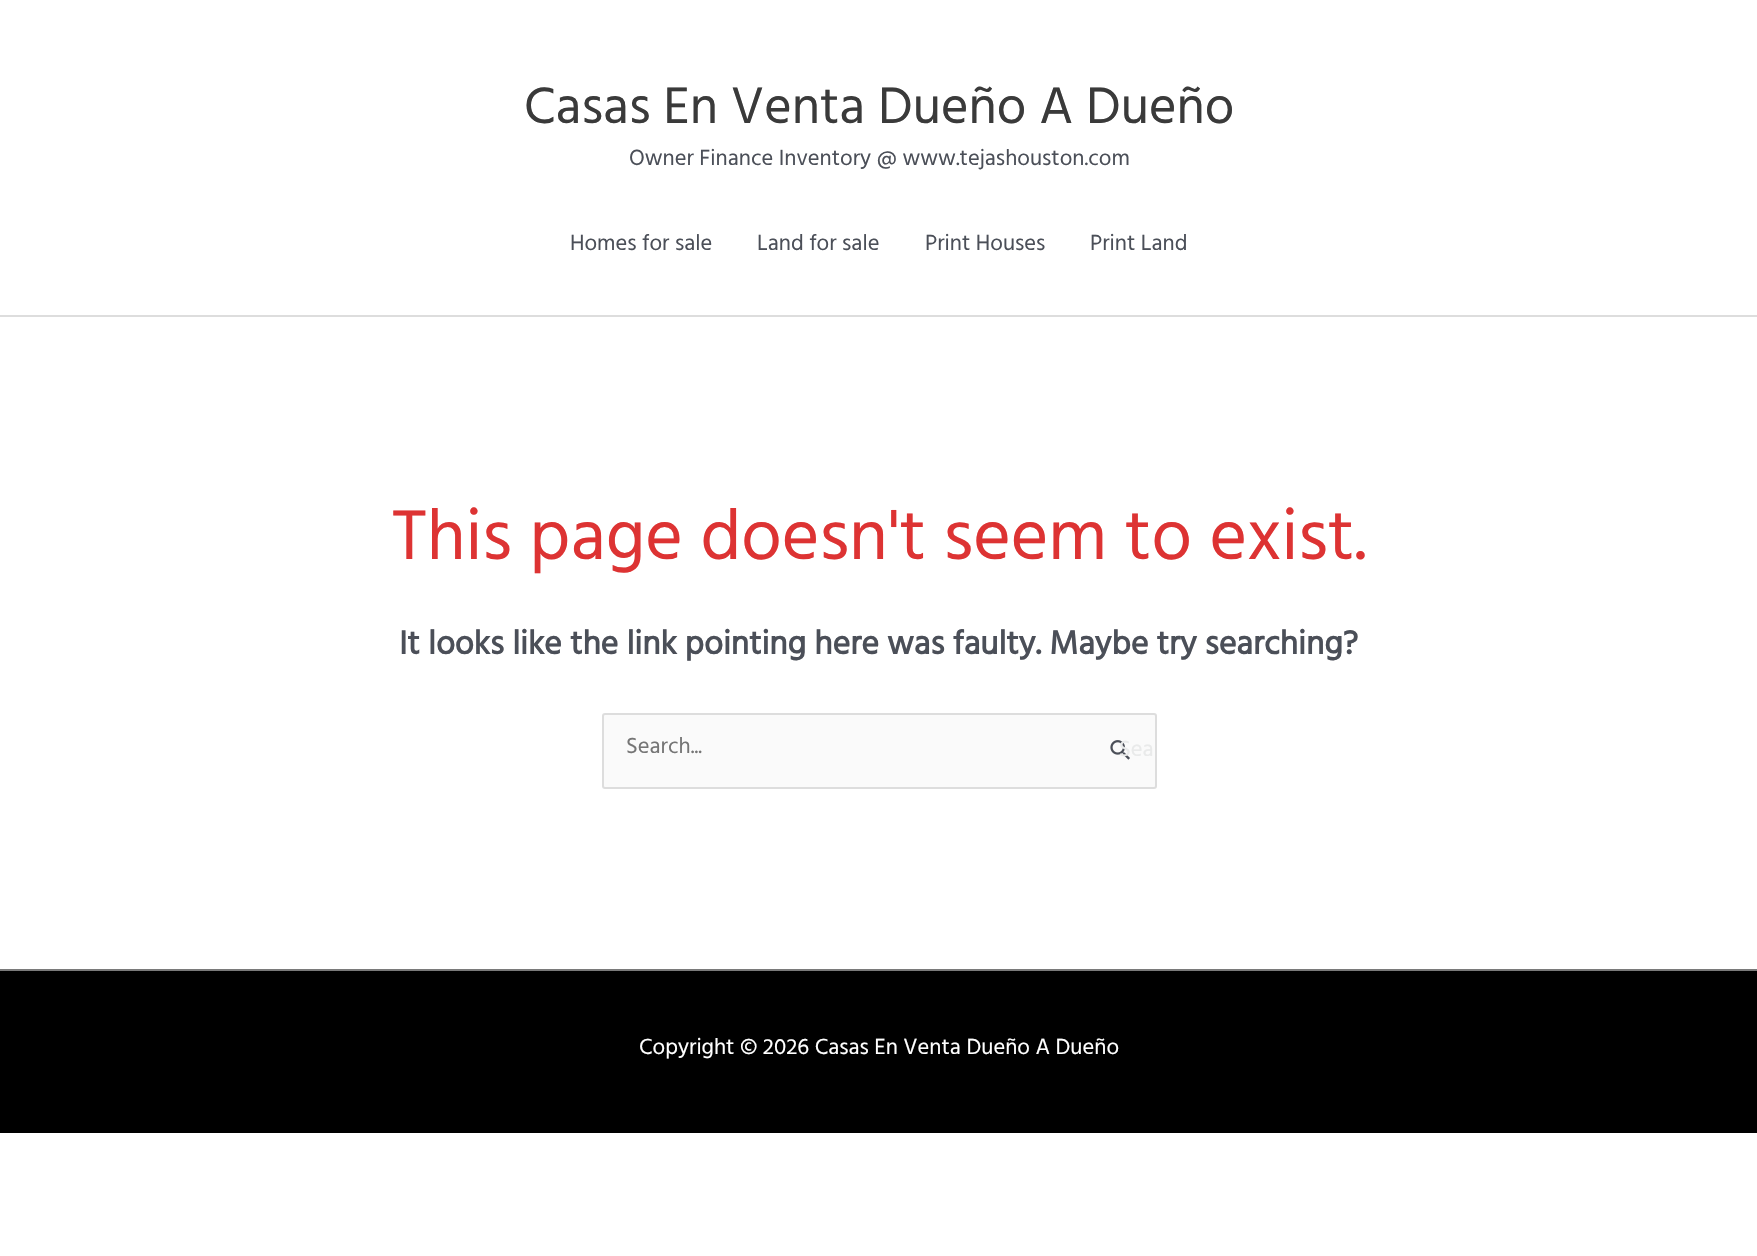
static SkFont makeFont(const char* family, int weight, float size, bool italic = false) {
  SkFontStyle style(weight, SkFontStyle::kNormal_Width,
    italic ? SkFontStyle::kItalic_Slant : SkFontStyle::kUpright_Slant);
  SkFont result(fontMgr->matchFamilyStyle(family, style), size);
  result.setSubpixel(true);
  return result;
}

static void text(SkCanvas* c, const char* s, float x, float y, const SkFont& font, SkColor color) {
  SkPaint ink(SkColor4f::FromColor(color));
  ink.setAntiAlias(true);
  c->drawString(s, x, y, font, ink);
}

static void box(SkCanvas* c, float l, float t, float r, float b, SkColor color) {
  SkPaint ink(SkColor4f::FromColor(color));
  ink.setAntiAlias(true);
  c->drawRect(SkRect::MakeLTRB(l, t, r, b), ink);
}

static void picture(SkCanvas* c, const char* path, float l, float t, float r, float b) {
  auto image = SkImages::DeferredFromEncodedData(SkData::MakeFromFileName(path));
  c->drawImageRect(image, SkRect::MakeLTRB(l, t, r, b), SkSamplingOptions());
}

void draw(SkCanvas* c) {
  SkPaint paint;
  paint.setAntiAlias(true);
  c->clear(0xffffffff);
  box(c, 0, 315, 1757, 317, 0xffdddddd);
  SkFont face1 = makeFont("Hind Guntur", 400, 52.5f);
  text(c, "Casas En Venta Dueño A Dueño", 524, 123, face1, 0xff3a3a3a);
  SkFont face2 = makeFont("Hind Guntur", 400, 22.5f);
  text(c, "Owner Finance Inventory @ www.tejashouston.com", 629, 165, face2, 0xff4b4f58);
  text(c, "Homes for sale", 570, 250, face2, 0xff4b4f58);
  text(c, "Land for sale", 757, 250, face2, 0xff4b4f58);
  text(c, "Print Houses", 925, 250, face2, 0xff4b4f58);
  text(c, "Print Land", 1090, 250, face2, 0xff4b4f58);
  SkFont face3 = makeFont("Hind Guntur", 400, 72);
  text(c, "This page doesn't seem to exist.", 392, 559, face3, 0xffdd3333);
  SkFont face4 = makeFont("Hind Guntur", 700, 33.75f);
  text(c, "It looks like the link pointing here was faulty. Maybe try searching?", 399, 654, face4, 0xff4b4f58);
  paint.setColor(0xfffafafa);
  c->drawRoundRect(SkRect::MakeLTRB(603, 714, 1156, 788), 2, 2, paint);
  paint.setStyle(SkPaint::kStroke_Style);
  paint.setStrokeWidth(2);
  paint.setColor(0xffdddddd);
  c->drawRoundRect(SkRect::MakeLTRB(603, 714, 1156, 788), 2, 2, paint);
  text(c, "Search...", 626, 753, face2, 0xff757575);
  picture(c, "img_01.png", 1110, 740, 1130, 760);
  text(c, "Sea", 1119, 756, face2, 0xffe9eaea);
  box(c, 0, 969, 1757, 971, 0xff7a7a7a);
  box(c, 0, 971, 1757, 1133, 0xff000000);
  text(c, "Copyright © 2026 Casas En Venta Dueño A Dueño", 639, 1054, face2, 0xffffffff);
}
